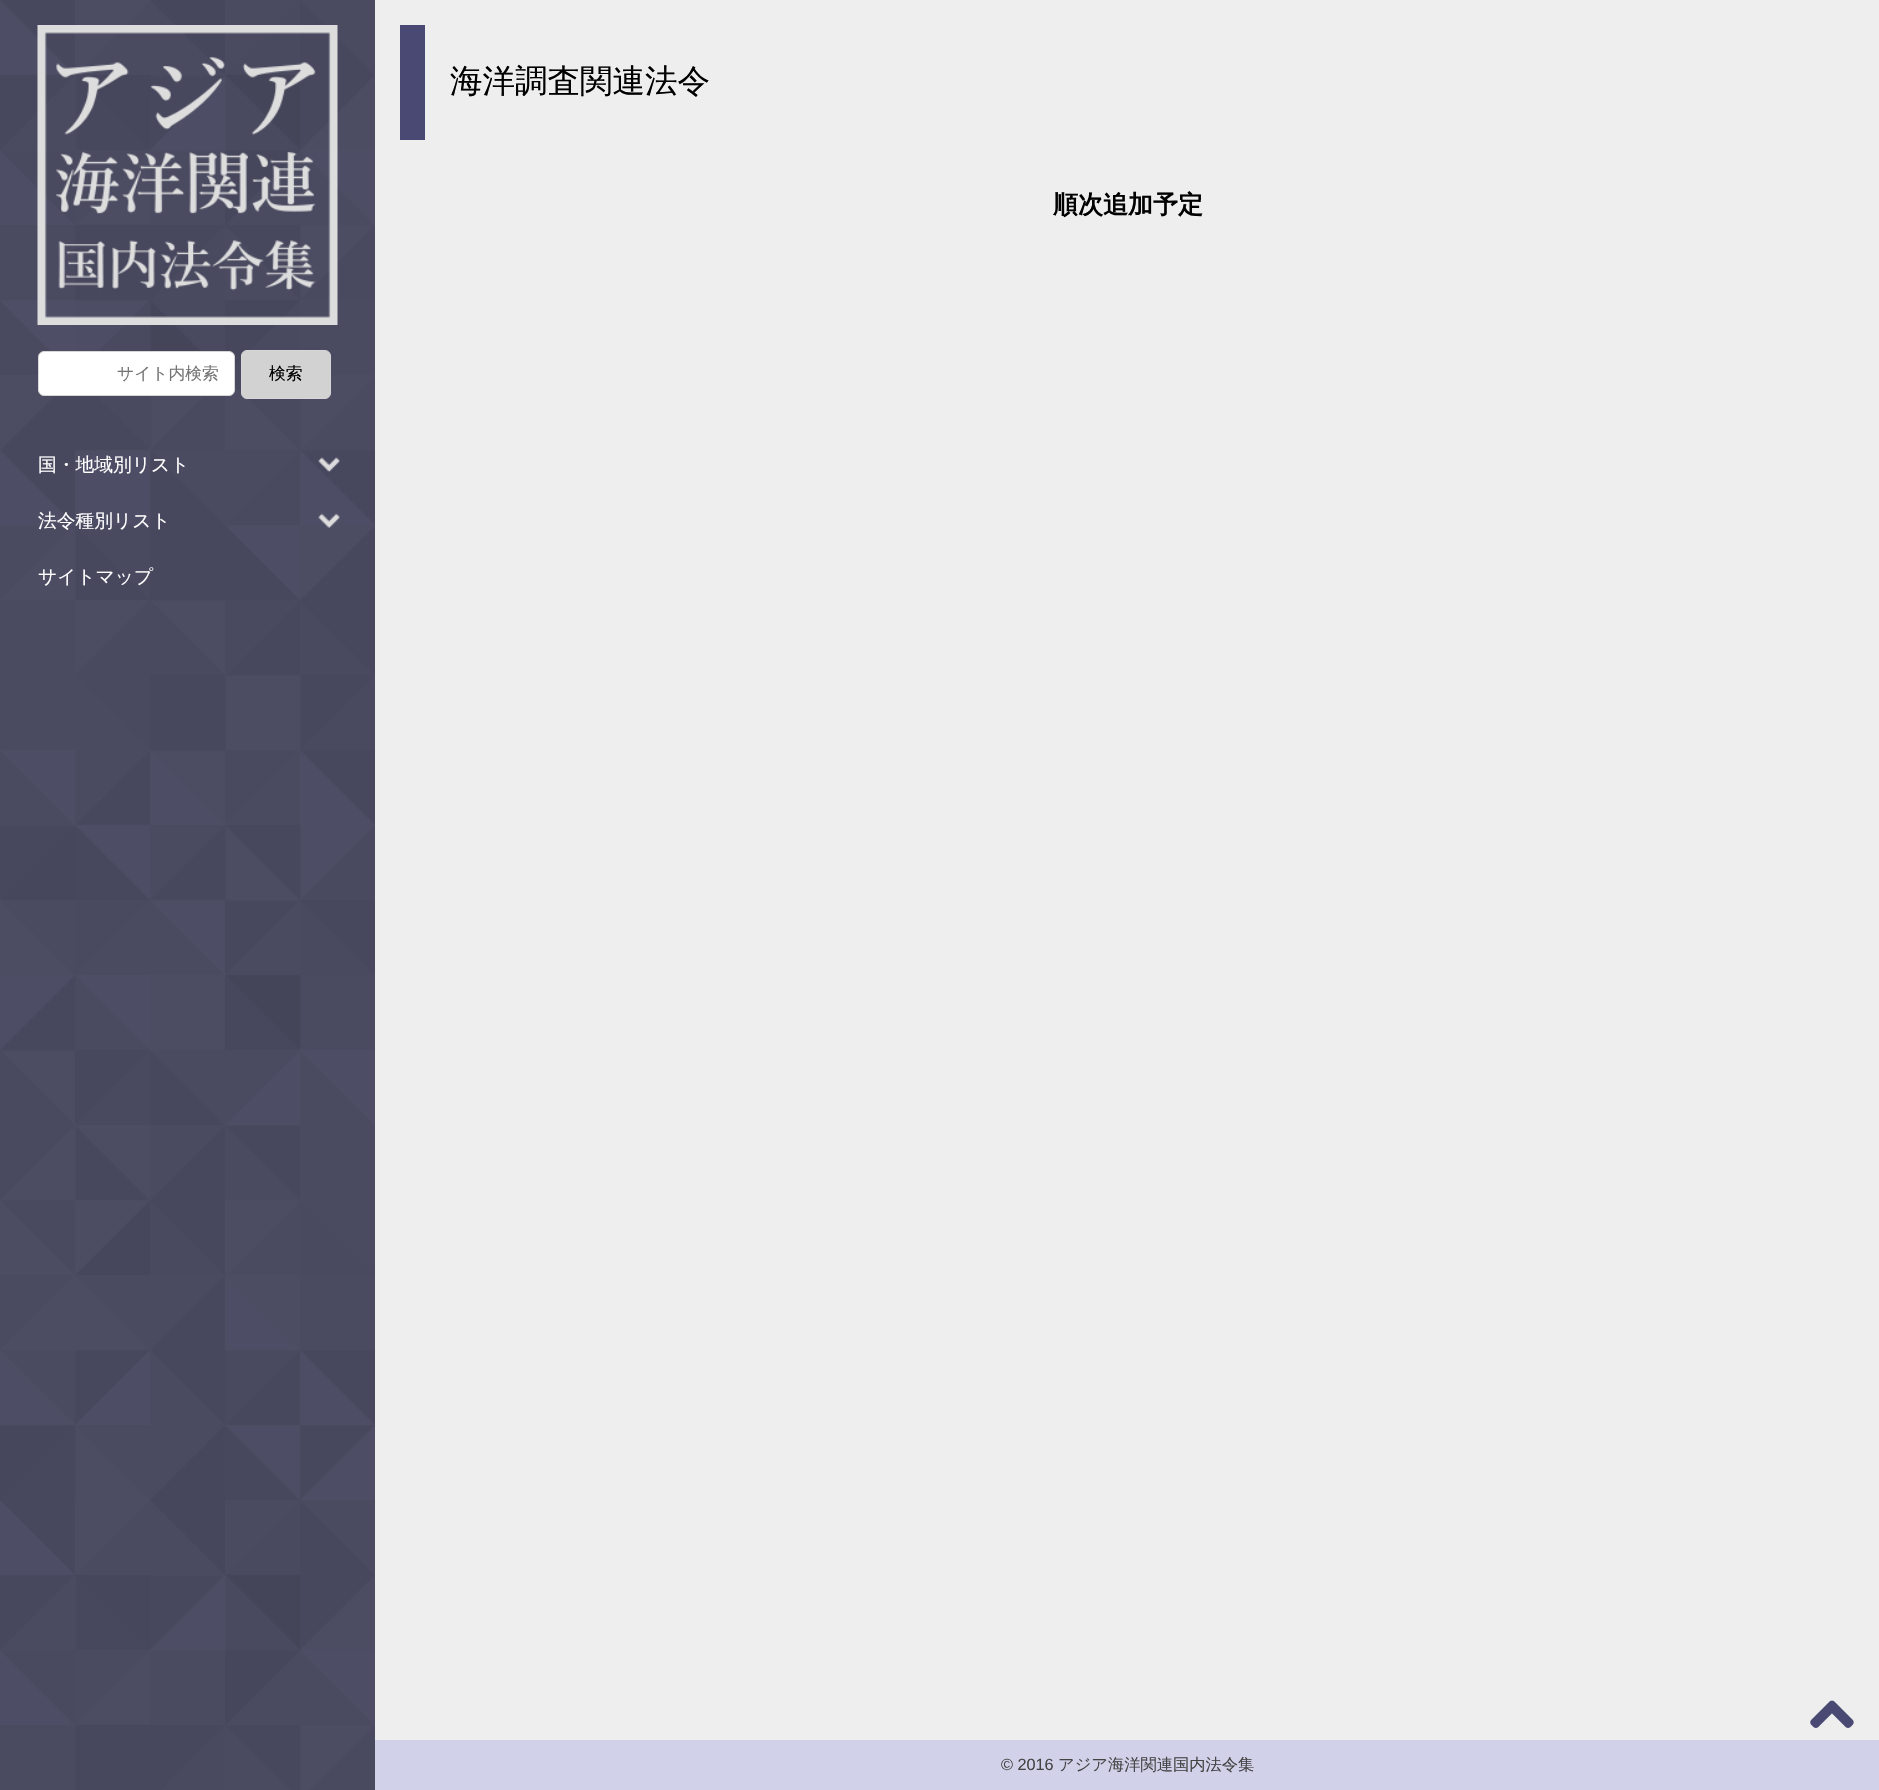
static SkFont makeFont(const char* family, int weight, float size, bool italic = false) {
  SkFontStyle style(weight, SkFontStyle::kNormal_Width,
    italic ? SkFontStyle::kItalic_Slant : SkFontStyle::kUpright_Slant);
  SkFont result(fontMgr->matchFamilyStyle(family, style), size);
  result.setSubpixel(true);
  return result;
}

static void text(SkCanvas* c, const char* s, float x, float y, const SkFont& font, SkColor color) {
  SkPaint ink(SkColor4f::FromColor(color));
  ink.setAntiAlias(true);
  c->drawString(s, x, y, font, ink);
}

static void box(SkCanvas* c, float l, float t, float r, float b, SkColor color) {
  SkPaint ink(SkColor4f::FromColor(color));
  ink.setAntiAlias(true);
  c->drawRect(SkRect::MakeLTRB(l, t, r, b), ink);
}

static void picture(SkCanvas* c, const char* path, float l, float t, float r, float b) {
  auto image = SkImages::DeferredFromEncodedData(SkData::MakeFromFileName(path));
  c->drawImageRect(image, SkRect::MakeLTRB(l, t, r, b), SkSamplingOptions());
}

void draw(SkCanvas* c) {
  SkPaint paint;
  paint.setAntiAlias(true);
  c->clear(0xffeeeeee);
  picture(c, "img_01.png", 0, 0, 375, 1790);
  picture(c, "img_02.png", 37, 25, 338, 325);
  paint.setColor(0xffffffff);
  c->drawRoundRect(SkRect::MakeLTRB(38.5f, 351.5f, 234.5f, 395.5f), 5.5f, 5.5f, paint);
  paint.setStyle(SkPaint::kStroke_Style);
  paint.setStrokeWidth(1);
  paint.setColor(0xffd6d6d6);
  c->drawRoundRect(SkRect::MakeLTRB(38.5f, 351.5f, 234.5f, 395.5f), 5.5f, 5.5f, paint);
  SkFont face1 = makeFont("WenQuanYi Zen Hei", 500, 16.75f);
  text(c, "サイト内検索", 117, 379, face1, 0xff757575);
  paint.setStyle(SkPaint::kFill_Style);
  paint.setColor(0xffd2d2d2);
  c->drawRoundRect(SkRect::MakeLTRB(241.5f, 350.5f, 330.5f, 398.5f), 5.5f, 5.5f, paint);
  paint.setStyle(SkPaint::kStroke_Style);
  paint.setColor(0xffd6d6d6);
  c->drawRoundRect(SkRect::MakeLTRB(241.5f, 350.5f, 330.5f, 398.5f), 5.5f, 5.5f, paint);
  text(c, "検索", 269, 379, face1, 0xff000000);
  picture(c, "img_03.png", 318, 457, 340, 472);
  SkFont face2 = makeFont("WenQuanYi Zen Hei", 500, 18.75f);
  text(c, "国・地域別リスト", 38, 471, face2, 0xffffffff);
  picture(c, "img_04.png", 318, 513, 340, 528);
  text(c, "法令種別リスト", 38, 527, face2, 0xffffffff);
  text(c, "サイトマップ", 38, 583, face2, 0xffffffff);
  box(c, 400, 25, 425, 140, 0xff494974);
  SkFont face3 = makeFont("WenQuanYi Zen Hei", 500, 32.5f);
  text(c, "海洋調査関連法令", 450, 92, face3, 0xff000000);
  SkFont face4 = makeFont("WenQuanYi Zen Hei", 700, 25);
  text(c, "順次追加予定", 1053, 213, face4, 0xff000000);
  picture(c, "img_05.png", 1810, 1700, 1854, 1728);
  box(c, 375, 1740, 1879, 1790, 0xffd1d1ea);
  SkFont face5 = makeFont("Liberation Sans", 400, 16.25f);
  text(c, "© 2016", 1001, 1770, face5, 0xff444444);
  SkFont face6 = makeFont("WenQuanYi Zen Hei", 500, 16.25f);
  text(c, "アジア海洋関連国内法令集", 1058, 1770, face6, 0xff444444);
}
